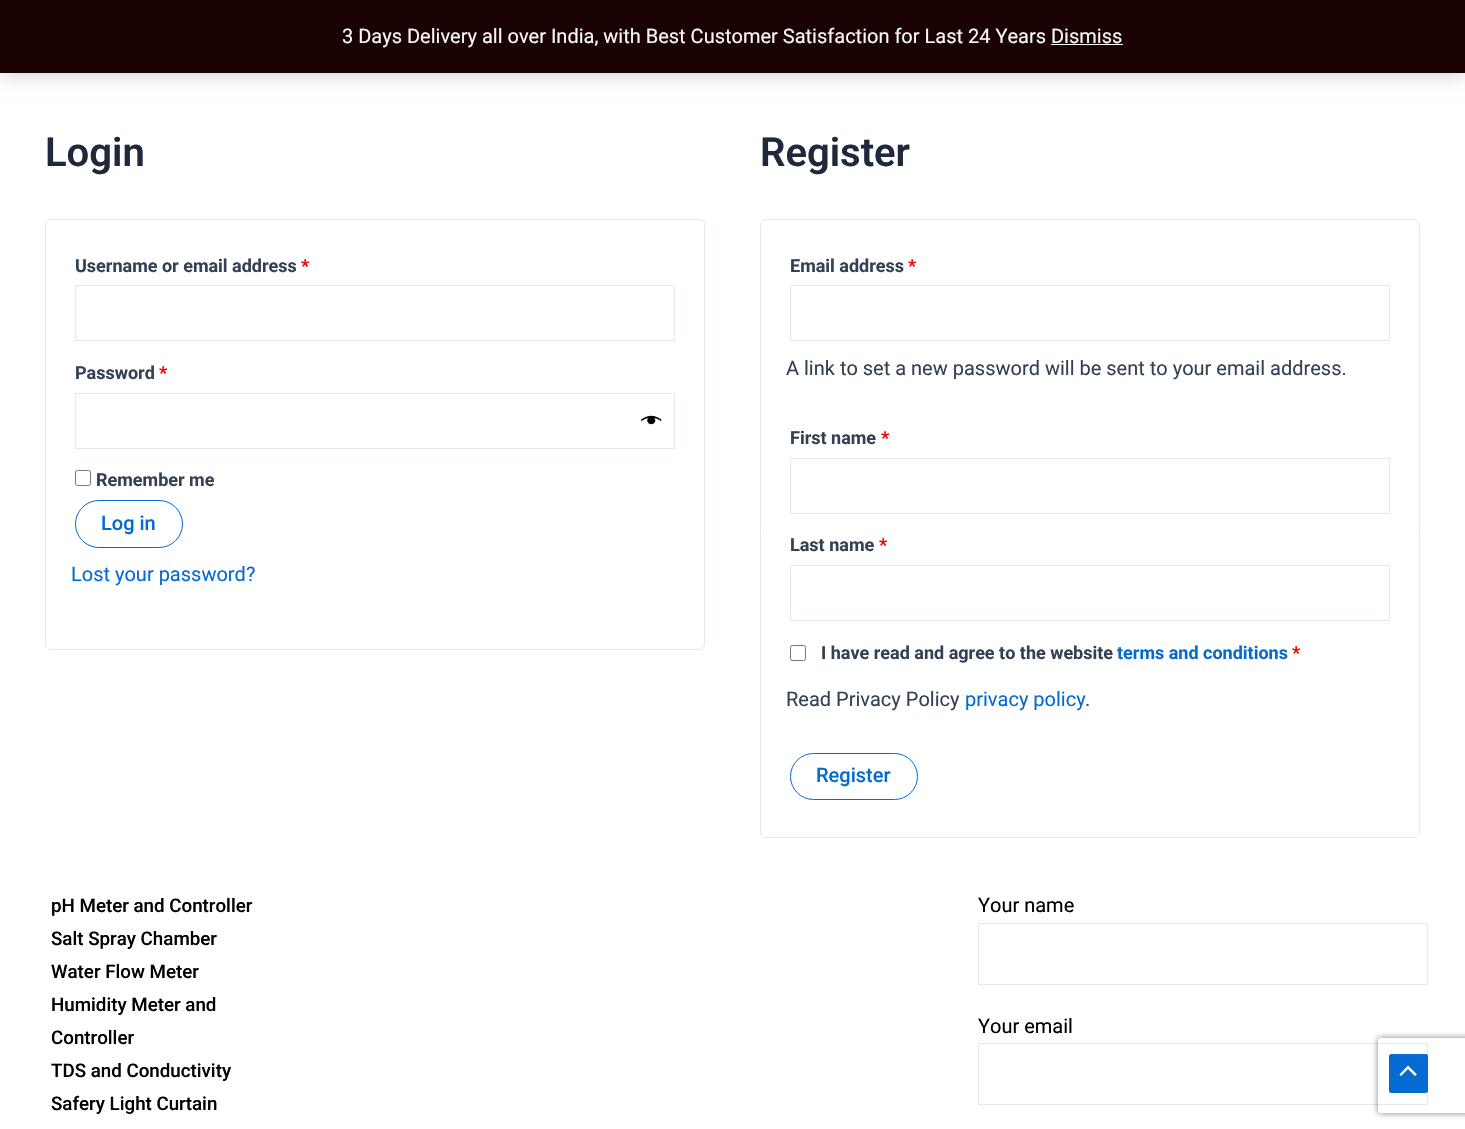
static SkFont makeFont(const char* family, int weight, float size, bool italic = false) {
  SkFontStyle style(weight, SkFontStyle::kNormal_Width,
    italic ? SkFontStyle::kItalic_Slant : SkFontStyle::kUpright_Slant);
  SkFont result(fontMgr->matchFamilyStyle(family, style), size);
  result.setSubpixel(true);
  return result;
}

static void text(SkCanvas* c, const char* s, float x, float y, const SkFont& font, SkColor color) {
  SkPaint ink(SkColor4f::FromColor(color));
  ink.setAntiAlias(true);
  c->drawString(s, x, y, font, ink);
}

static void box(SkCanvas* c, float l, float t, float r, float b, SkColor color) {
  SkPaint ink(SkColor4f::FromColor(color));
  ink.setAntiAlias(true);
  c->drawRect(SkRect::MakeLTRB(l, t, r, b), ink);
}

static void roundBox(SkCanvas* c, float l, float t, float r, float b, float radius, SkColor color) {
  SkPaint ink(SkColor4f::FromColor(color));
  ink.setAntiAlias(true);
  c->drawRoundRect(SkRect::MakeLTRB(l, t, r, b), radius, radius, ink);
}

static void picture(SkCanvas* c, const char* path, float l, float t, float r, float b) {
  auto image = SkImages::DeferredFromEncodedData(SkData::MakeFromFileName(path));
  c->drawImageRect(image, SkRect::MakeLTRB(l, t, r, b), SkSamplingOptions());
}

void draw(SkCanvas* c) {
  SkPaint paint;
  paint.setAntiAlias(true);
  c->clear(0xffffffff);
  paint.setColor(0x33000000);
  paint.setMaskFilter(SkMaskFilter::MakeBlur(kNormal_SkBlurStyle, 10));
  c->drawRect(SkRect::MakeLTRB(0, 1, 1465, 74), paint);
  paint.setMaskFilter(nullptr);
  box(c, 0, 0, 1465, 73, 0xff1a0202);
  SkFont face1 = makeFont("Roboto", 400, 20);
  text(c, "3 Days Delivery all over India, with Best Customer Satisfaction for Last 24 Years Dismiss", 342, 43, face1, 0xfffafafa);
  box(c, 1051, 44, 1123, 45, 0xfffafafa);
  SkFont face2 = makeFont("Roboto", 600, 40);
  text(c, "Login", 45, 166, face2, 0xff1e293b);
  paint.setStyle(SkPaint::kStroke_Style);
  paint.setStrokeWidth(1);
  paint.setColor(0xffe2e8f0);
  c->drawRoundRect(SkRect::MakeLTRB(45.5f, 219.5f, 704.5f, 649.5f), 5.5f, 5.5f, paint);
  SkFont face3 = makeFont("Roboto", 700, 18);
  text(c, "Username or email address", 75, 272, face3, 0xff334155);
  text(c, "*", 301, 272, face3, 0xffff0000);
  c->drawRect(SkRect::MakeLTRB(75.5f, 285.5f, 674.5f, 340.5f), paint);
  text(c, "Password", 75, 379, face3, 0xff334155);
  text(c, "*", 159, 379, face3, 0xffff0000);
  c->drawRect(SkRect::MakeLTRB(75.5f, 393.5f, 674.5f, 448.5f), paint);
  picture(c, "img_01.png", 641, 415, 662, 425);
  paint.setColor(0xff767676);
  c->drawRoundRect(SkRect::MakeLTRB(75.5f, 470.5f, 90.5f, 485.5f), 2, 2, paint);
  text(c, "Remember me", 96, 486, face3, 0xff334155);
  paint.setColor(0xff046bd2);
  c->drawRoundRect(SkRect::MakeLTRB(75.5f, 500.5f, 182.5f, 547.5f), 23.5f, 23.5f, paint);
  SkFont face4 = makeFont("Roboto", 500, 20);
  text(c, "Log in", 101, 530, face4, 0xff046bd2);
  text(c, "Lost your password?", 71, 581, face1, 0xff046bd2);
  text(c, "Register", 760, 166, face2, 0xff1e293b);
  paint.setColor(0xffe2e8f0);
  c->drawRoundRect(SkRect::MakeLTRB(760.5f, 219.5f, 1419.5f, 837.5f), 5.5f, 5.5f, paint);
  text(c, "Email address", 790, 272, face3, 0xff334155);
  text(c, "*", 908, 272, face3, 0xffff0000);
  c->drawRect(SkRect::MakeLTRB(790.5f, 285.5f, 1389.5f, 340.5f), paint);
  text(c, "A link to set a new password will be sent to your email address.", 786, 375, face1, 0xff334155);
  text(c, "First name", 790, 444, face3, 0xff334155);
  text(c, "*", 881, 444, face3, 0xffff0000);
  c->drawRect(SkRect::MakeLTRB(790.5f, 458.5f, 1389.5f, 513.5f), paint);
  text(c, "Last name", 790, 551, face3, 0xff334155);
  text(c, "*", 879, 551, face3, 0xffff0000);
  c->drawRect(SkRect::MakeLTRB(790.5f, 565.5f, 1389.5f, 620.5f), paint);
  paint.setColor(0xff767676);
  c->drawRoundRect(SkRect::MakeLTRB(790.5f, 645.5f, 805.5f, 660.5f), 2, 2, paint);
  text(c, "I have read and agree to the website", 821, 659, face3, 0xff334155);
  text(c, "terms and conditions", 1117, 659, face3, 0xff046bd2);
  text(c, "*", 1292, 659, face3, 0xffff0000);
  text(c, "Read Privacy Policy", 786, 706, face1, 0xff334155);
  text(c, "privacy policy", 965, 706, face1, 0xff046bd2);
  text(c, ".", 1085, 706, face1, 0xff334155);
  paint.setColor(0xff046bd2);
  c->drawRoundRect(SkRect::MakeLTRB(790.5f, 753.5f, 917.5f, 799.5f), 23, 23, paint);
  text(c, "Register", 816, 782, face4, 0xff046bd2);
  SkFont face5 = makeFont("Roboto", 500, 18.75f);
  text(c, "pH Meter and Controller", 51, 912, face5, 0xff000000);
  text(c, "Salt Spray Chamber", 51, 945, face5, 0xff000000);
  text(c, "Water Flow Meter", 51, 978, face5, 0xff000000);
  text(c, "Humidity Meter and", 51, 1011, face5, 0xff000000);
  text(c, "Controller", 51, 1044, face5, 0xff000000);
  text(c, "TDS and Conductivity", 51, 1077, face5, 0xff000000);
  text(c, "Safery Light Curtain", 51, 1110, face5, 0xff000000);
  text(c, "Your name", 978, 912, face1, 0xff000000);
  paint.setColor(0xffe7e7e7);
  c->drawRect(SkRect::MakeLTRB(978.5f, 923.5f, 1427.5f, 984.5f), paint);
  text(c, "Your email", 978, 1033, face1, 0xff000000);
  c->drawRect(SkRect::MakeLTRB(978.5f, 1043.5f, 1427.5f, 1104.5f), paint);
  c->save();
  c->clipPath(SkPathBuilder(SkPathFillType::kEvenOdd).moveTo(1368, 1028).lineTo(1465, 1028).lineTo(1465, 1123).lineTo(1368, 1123).close().moveTo(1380.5f, 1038).lineTo(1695.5f, 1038).cubicTo(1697, 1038, 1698, 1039, 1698, 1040.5f).lineTo(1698, 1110.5f).cubicTo(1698, 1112, 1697, 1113, 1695.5f, 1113).lineTo(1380.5f, 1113).cubicTo(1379, 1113, 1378, 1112, 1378, 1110.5f).lineTo(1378, 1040.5f).cubicTo(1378, 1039, 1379, 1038, 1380.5f, 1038).close().detach(), true);
  paint.setStyle(SkPaint::kFill_Style);
  paint.setColor(0xff808080);
  paint.setMaskFilter(SkMaskFilter::MakeBlur(kNormal_SkBlurStyle, 3));
  c->drawRoundRect(SkRect::MakeLTRB(1378, 1038, 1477, 1113), 2.5f, 2.5f, paint);
  paint.setMaskFilter(nullptr);
  c->restore();
  roundBox(c, 1389, 1054, 1428, 1093, 2.5f, 0xff046bd2);
  paint.setColor(0xffffffff);
  c->drawPath(SkPathBuilder().moveTo(1417, 1074.5f).lineTo(1408, 1065.5f).lineTo(1399.5f, 1074.5f).lineTo(1401, 1076).lineTo(1408, 1069).lineTo(1415, 1076).close().detach(), paint);
}
